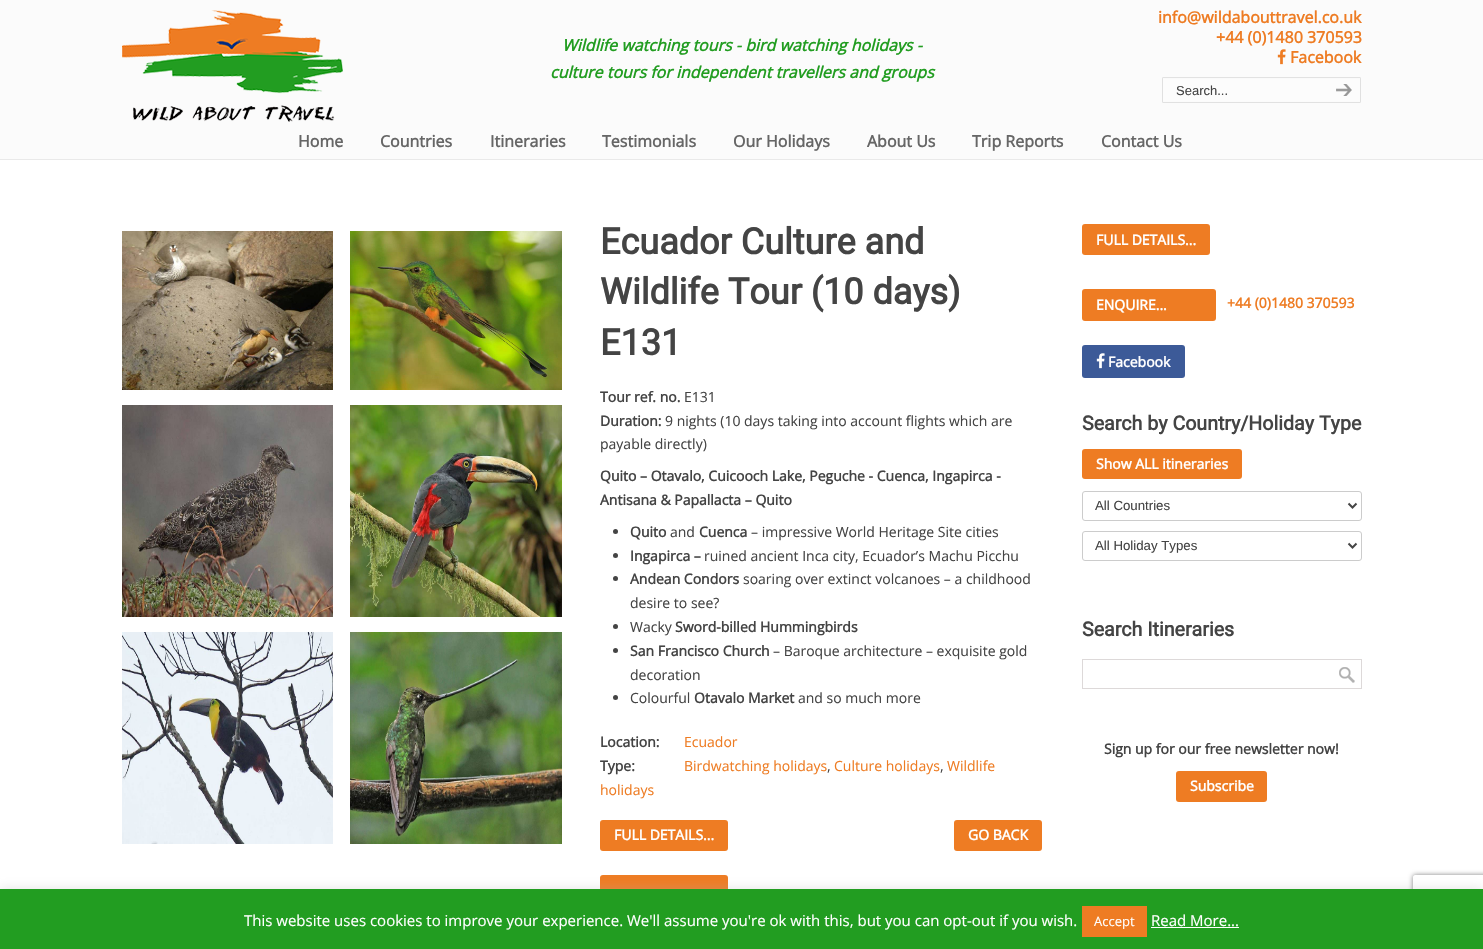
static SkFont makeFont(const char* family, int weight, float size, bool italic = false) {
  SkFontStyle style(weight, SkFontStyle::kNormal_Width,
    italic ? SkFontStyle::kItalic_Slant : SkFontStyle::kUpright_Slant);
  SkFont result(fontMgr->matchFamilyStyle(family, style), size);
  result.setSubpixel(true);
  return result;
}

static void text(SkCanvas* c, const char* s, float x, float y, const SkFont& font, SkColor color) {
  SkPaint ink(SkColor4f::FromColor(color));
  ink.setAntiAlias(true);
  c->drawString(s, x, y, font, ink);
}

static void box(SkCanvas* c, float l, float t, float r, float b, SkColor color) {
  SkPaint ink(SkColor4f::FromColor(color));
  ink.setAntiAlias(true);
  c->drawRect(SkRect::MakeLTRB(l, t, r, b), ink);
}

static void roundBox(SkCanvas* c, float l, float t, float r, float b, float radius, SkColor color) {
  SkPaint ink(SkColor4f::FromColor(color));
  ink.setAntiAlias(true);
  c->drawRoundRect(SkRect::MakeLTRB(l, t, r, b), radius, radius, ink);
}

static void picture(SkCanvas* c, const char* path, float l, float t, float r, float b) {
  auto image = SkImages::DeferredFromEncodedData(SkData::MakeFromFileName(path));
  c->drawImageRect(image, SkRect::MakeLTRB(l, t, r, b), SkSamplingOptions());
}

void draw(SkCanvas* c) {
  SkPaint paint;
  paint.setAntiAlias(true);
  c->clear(0xfffbfbfb);
  picture(c, "img_01.png", 122, 10, 343, 122);
  SkFont face1 = makeFont("Open Sans", 700, 16, true);
  text(c, "Wildlife watching tours - bird watching holidays -", 562, 51, face1, 0xff229d21);
  text(c, "culture tours for independent travellers and groups", 550, 78, face1, 0xff229d21);
  SkFont face2 = makeFont("Open Sans", 700, 16);
  text(c, "info@wildabouttravel.co.uk", 1158, 23, face2, 0xffee7c23);
  text(c, "+44 (0)1480 370593", 1216, 43, face2, 0xffee7c23);
  picture(c, "img_02.png", 1277, 49, 1286, 65);
  text(c, "Facebook", 1290, 63, face2, 0xffee7c23);
  picture(c, "img_03.png", 1162, 77, 1321, 103);
  SkFont face3 = makeFont("Liberation Sans", 400, 13);
  text(c, "Search...", 1176, 95, face3, 0xff444444);
  picture(c, "img_04.png", 1321, 77, 1361, 103);
  text(c, "Home", 298, 147, face2, 0xff666666);
  text(c, "Countries", 380, 147, face2, 0xff666666);
  text(c, "Itineraries", 490, 147, face2, 0xff666666);
  text(c, "Testimonials", 602, 147, face2, 0xff666666);
  text(c, "Our Holidays", 733, 147, face2, 0xff666666);
  text(c, "About Us", 867, 147, face2, 0xff666666);
  text(c, "Trip Reports", 972, 147, face2, 0xff666666);
  text(c, "Contact Us", 1101, 147, face2, 0xff666666);
  box(c, 0, 159, 1483, 160, 0xffe9e9e9);
  box(c, 0, 160, 1483, 889, 0xffffffff);
  picture(c, "img_05.png", 122, 231, 333, 390);
  picture(c, "img_06.png", 350, 231, 562, 390);
  picture(c, "img_07.png", 122, 405, 333, 617);
  picture(c, "img_08.png", 350, 405, 562, 617);
  picture(c, "img_09.png", 122, 632, 333, 844);
  picture(c, "img_10.png", 350, 632, 562, 844);
  SkFont face4 = makeFont("Roboto", 700, 36);
  text(c, "Ecuador Culture and", 600, 254, face4, 0xff444444);
  text(c, "Wildlife Tour (10 days)", 600, 304, face4, 0xff444444);
  text(c, "E131", 600, 355, face4, 0xff444444);
  SkFont face5 = makeFont("Open Sans", 700, 14);
  text(c, "Tour ref. no.", 600, 402, face5, 0xff444444);
  SkFont face6 = makeFont("Open Sans", 400, 14);
  text(c, "E131", 684, 402, face6, 0xff444444);
  text(c, "Duration:", 600, 426, face5, 0xff444444);
  text(c, "9 nights (10 days taking into account flights which are", 665, 426, face6, 0xff444444);
  text(c, "payable directly)", 600, 449, face6, 0xff444444);
  text(c, "Quito – Otavalo, Cuicooch Lake, Peguche - Cuenca, Ingapirca -", 600, 481, face5, 0xff444444);
  text(c, "Antisana & Papallacta – Quito", 600, 505, face5, 0xff444444);
  paint.setColor(0xff444444);
  c->drawCircle(615.5f, 531.5f, 2.5f, paint);
  text(c, "Quito", 630, 537, face5, 0xff444444);
  text(c, "and", 670, 537, face6, 0xff444444);
  text(c, "Cuenca", 699, 537, face5, 0xff444444);
  text(c, "– impressive World Heritage Site cities", 751, 537, face6, 0xff444444);
  c->drawCircle(615.5f, 555.5f, 2.5f, paint);
  text(c, "Ingapirca –", 630, 561, face5, 0xff444444);
  text(c, "ruined ancient Inca city, Ecuador’s Machu Picchu", 704, 561, face6, 0xff444444);
  c->drawCircle(615.5f, 578.5f, 2.5f, paint);
  text(c, "Andean Condors", 630, 584, face5, 0xff444444);
  text(c, "soaring over extinct volcanoes – a childhood", 743, 584, face6, 0xff444444);
  text(c, "desire to see?", 630, 608, face6, 0xff444444);
  c->drawCircle(615.5f, 626.5f, 2.5f, paint);
  text(c, "Wacky", 630, 632, face6, 0xff444444);
  text(c, "Sword-billed Hummingbirds", 675, 632, face5, 0xff444444);
  c->drawCircle(615.5f, 650.5f, 2.5f, paint);
  text(c, "San Francisco Church", 630, 656, face5, 0xff444444);
  text(c, "– Baroque architecture – exquisite gold", 773, 656, face6, 0xff444444);
  text(c, "decoration", 630, 680, face6, 0xff444444);
  c->drawCircle(615.5f, 697.5f, 2.5f, paint);
  text(c, "Colourful", 630, 703, face6, 0xff444444);
  text(c, "Otavalo Market", 694, 703, face5, 0xff444444);
  text(c, "and so much more", 798, 703, face6, 0xff444444);
  text(c, "Location:", 600, 747, face5, 0xff444444);
  text(c, "Ecuador", 684, 747, face6, 0xffee7c23);
  text(c, "Type:", 600, 771, face5, 0xff444444);
  text(c, "Birdwatching holidays", 684, 771, face6, 0xffee7c23);
  text(c, ",", 827, 771, face6, 0xff444444);
  text(c, "Culture holidays", 834, 771, face6, 0xffee7c23);
  text(c, ",", 940, 771, face6, 0xff444444);
  text(c, "Wildlife", 947, 771, face6, 0xffee7c23);
  text(c, "holidays", 600, 795, face6, 0xffee7c23);
  roundBox(c, 600, 820, 728, 851, 3, 0xffee7c23);
  text(c, "FULL DETAILS...", 614, 840, face5, 0xffffffff);
  roundBox(c, 600, 875, 728, 906, 3, 0xffee7c23);
  roundBox(c, 954, 820, 1042, 851, 3, 0xffee7c23);
  text(c, "GO BACK", 968, 840, face5, 0xffffffff);
  roundBox(c, 1082, 224, 1210, 255, 3, 0xffee7c23);
  text(c, "FULL DETAILS...", 1096, 245, face5, 0xffffffff);
  roundBox(c, 1082, 289, 1216, 321, 3, 0xffee7c23);
  text(c, "ENQUIRE...", 1096, 310, face5, 0xffffffff);
  text(c, "+44 (0)1480 370593", 1227, 308, face5, 0xffee7c23);
  roundBox(c, 1082, 345, 1185, 378, 3, 0xff3c5a98);
  picture(c, "img_11.png", 1096, 353, 1105, 369);
  text(c, "Facebook", 1108, 367, face5, 0xffffffff);
  SkFont face7 = makeFont("Roboto", 700, 19.6f);
  text(c, "Search by Country/Holiday Type", 1082, 430, face7, 0xff444444);
  roundBox(c, 1082, 449, 1242, 479, 3, 0xffee7c23);
  text(c, "Show ALL itineraries", 1096, 469, face5, 0xffffffff);
  paint.setStyle(SkPaint::kStroke_Style);
  paint.setStrokeWidth(1);
  paint.setColor(0xffcccccc);
  c->drawRoundRect(SkRect::MakeLTRB(1082.5f, 491.5f, 1361.5f, 520.5f), 2.5f, 2.5f, paint);
  paint.setStrokeWidth(2);
  paint.setColor(0xff454545);
  c->drawPath(SkPathBuilder().moveTo(1348.5f, 503.5f).lineTo(1352.5f, 507.5f).lineTo(1356.5f, 503.5f).detach(), paint);
  SkFont face8 = makeFont("Liberation Sans", 400, 13.25f);
  text(c, "All Countries", 1095, 510, face8, 0xff444444);
  paint.setStrokeWidth(1);
  paint.setColor(0xffcccccc);
  c->drawRoundRect(SkRect::MakeLTRB(1082.5f, 531.5f, 1361.5f, 560.5f), 2.5f, 2.5f, paint);
  paint.setStrokeWidth(2);
  paint.setColor(0xff454545);
  c->drawPath(SkPathBuilder().moveTo(1348.5f, 543.5f).lineTo(1352.5f, 547.5f).lineTo(1356.5f, 543.5f).detach(), paint);
  text(c, "All Holiday Types", 1095, 550, face8, 0xff444444);
  text(c, "Search Itineraries", 1082, 636, face7, 0xff444444);
  paint.setStrokeWidth(1);
  paint.setColor(0xffddd9d9);
  c->drawRect(SkRect::MakeLTRB(1082.5f, 659.5f, 1361.5f, 688.5f), paint);
  picture(c, "img_12.png", 1339, 667, 1355, 683);
  text(c, "Sign up for our free newsletter now!", 1104, 754, face5, 0xff444444);
  roundBox(c, 1176, 771, 1267, 802, 3, 0xffee7c23);
  text(c, "Subscribe", 1190, 791, face5, 0xffffffff);
  paint.setStyle(SkPaint::kFill_Style);
  paint.setColor(0x4dacabab);
  paint.setMaskFilter(SkMaskFilter::MakeBlur(kNormal_SkBlurStyle, 5));
  c->drawRect(SkRect::MakeLTRB(0, 888, 1483, 948), paint);
  paint.setMaskFilter(nullptr);
  c->save();
  c->clipPath(SkPathBuilder(SkPathFillType::kEvenOdd).moveTo(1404, 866).lineTo(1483, 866).lineTo(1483, 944).lineTo(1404, 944).close().moveTo(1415, 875).lineTo(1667, 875).cubicTo(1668, 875, 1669, 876, 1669, 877).lineTo(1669, 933).cubicTo(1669, 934, 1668, 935, 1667, 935).lineTo(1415, 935).cubicTo(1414, 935, 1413, 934, 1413, 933).lineTo(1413, 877).cubicTo(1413, 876, 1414, 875, 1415, 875).close().detach(), true);
  paint.setColor(0xff808080);
  paint.setMaskFilter(SkMaskFilter::MakeBlur(kNormal_SkBlurStyle, 2.5f));
  c->drawRoundRect(SkRect::MakeLTRB(1413, 875, 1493, 935), 2, 2, paint);
  paint.setMaskFilter(nullptr);
  c->restore();
  box(c, 0, 889, 1483, 949, 0xff229d21);
  SkFont face9 = makeFont("Open Sans", 400, 15);
  text(c, "This website uses cookies to improve your experience. We'll assume you're ok with this, but you can opt-out if you wish.", 244, 926, face9, 0xffffffff);
  box(c, 1082, 906, 1147, 937, 0xffee7c23);
  SkFont face10 = makeFont("Open Sans", 400, 13);
  text(c, "Accept", 1094, 926, face10, 0xffffffff);
  text(c, "Read More...", 1151, 926, face9, 0xffffffff);
  box(c, 1151, 927, 1239, 928, 0xffffffff);
}
